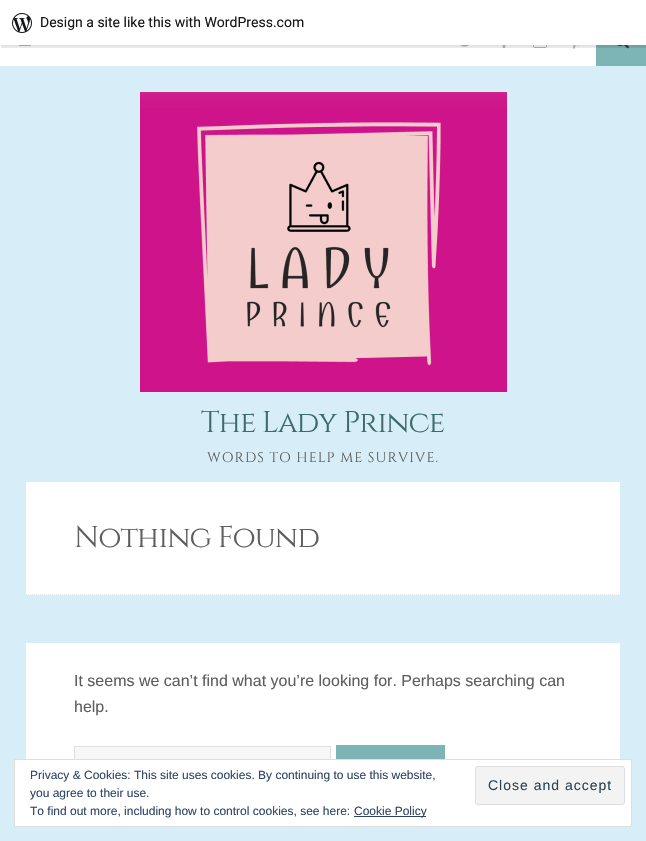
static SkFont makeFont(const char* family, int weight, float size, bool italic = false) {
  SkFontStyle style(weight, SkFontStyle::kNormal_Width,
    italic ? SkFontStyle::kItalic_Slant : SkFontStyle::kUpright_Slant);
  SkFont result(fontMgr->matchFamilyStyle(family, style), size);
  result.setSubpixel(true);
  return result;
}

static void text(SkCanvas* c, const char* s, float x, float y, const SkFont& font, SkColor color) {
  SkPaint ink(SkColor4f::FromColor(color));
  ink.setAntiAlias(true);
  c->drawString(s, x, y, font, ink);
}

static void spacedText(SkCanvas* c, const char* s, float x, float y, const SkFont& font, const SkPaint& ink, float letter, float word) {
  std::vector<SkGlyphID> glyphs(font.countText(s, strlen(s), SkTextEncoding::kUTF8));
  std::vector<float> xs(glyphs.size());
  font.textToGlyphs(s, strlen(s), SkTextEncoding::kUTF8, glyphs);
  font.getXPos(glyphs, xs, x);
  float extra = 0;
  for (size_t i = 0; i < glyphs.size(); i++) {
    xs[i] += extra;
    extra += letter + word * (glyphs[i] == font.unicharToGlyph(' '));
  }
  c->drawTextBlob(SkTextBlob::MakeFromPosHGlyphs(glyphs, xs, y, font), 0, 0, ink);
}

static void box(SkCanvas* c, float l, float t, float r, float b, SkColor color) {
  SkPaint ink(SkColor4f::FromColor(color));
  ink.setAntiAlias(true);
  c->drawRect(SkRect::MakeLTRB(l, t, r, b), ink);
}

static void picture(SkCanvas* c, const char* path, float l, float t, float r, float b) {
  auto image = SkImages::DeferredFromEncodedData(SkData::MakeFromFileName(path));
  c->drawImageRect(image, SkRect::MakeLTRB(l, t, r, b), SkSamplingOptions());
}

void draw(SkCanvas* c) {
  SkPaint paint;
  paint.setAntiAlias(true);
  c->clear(0xffd7eef8);
  box(c, 0, 45, 596, 66, 0xffffffff);
  picture(c, "img_02.png", 19, 45, 31, 46);
  picture(c, "img_03.png", 460, 45, 470, 47);
  picture(c, "img_04.png", 502, 45, 506, 48);
  picture(c, "img_05.png", 533, 45, 547, 48);
  picture(c, "img_06.png", 573, 45, 580, 49);
  box(c, 596, 45, 646, 66, 0xff7db4b5);
  picture(c, "img_07.png", 617, 45, 629, 49);
  paint.setColor(0x0d000000);
  paint.setMaskFilter(SkMaskFilter::MakeBlur(kNormal_SkBlurStyle, 1));
  c->drawRect(SkRect::MakeLTRB(0, 1, 646, 46), paint);
  paint.setMaskFilter(nullptr);
  paint.setColor(0x14000000);
  c->drawPath(SkPathBuilder().moveTo(1, 45).lineTo(1, 48).lineTo(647, 48).lineTo(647, 3).lineTo(646, 3).lineTo(646, 45).close().detach(), paint);
  box(c, 0, 0, 646, 45, 0xffffffff);
  picture(c, "img_01.png", 12, 13, 32, 33);
  SkFont face1 = makeFont("Roboto", 400, 14);
  text(c, "Design a site like this with WordPress.com", 40, 27, face1, 0xff171717);
  picture(c, "img_08.png", 140, 92, 507, 392);
  SkFont face2 = makeFont("Cinzel", 400, 30);
  paint.setColor(0xff3d6a6a);
  spacedText(c, "The Lady Prince", 201, 432, face2, paint, -1, 0);
  SkFont face3 = makeFont("Cinzel", 400, 14);
  paint.setColor(0xff5e5e5e);
  spacedText(c, "WORDS TO HELP ME SURVIVE.", 207, 462, face3, paint, 1, 0);
  box(c, 26, 482, 620, 595, 0xffffffff);
  paint.setStyle(SkPaint::kStroke_Style);
  paint.setStrokeWidth(1);
  paint.setColor(0xffe6e6e6);
  paint.setPathEffect(SkDashPathEffect::Make({{1, 1}}, 0));
  c->drawPath(SkPathBuilder().moveTo(26, 594.5f).lineTo(620, 594.5f).detach(), paint);
  paint.setPathEffect(nullptr);
  paint.setStyle(SkPaint::kFill_Style);
  paint.setColor(0xff5e5e5e);
  spacedText(c, "Nothing Found", 74, 547, face2, paint, -1, 0);
  box(c, 26, 643, 620, 759, 0xffffffff);
  SkFont face4 = makeFont("Arimo", 400, 16);
  text(c, "It seems we can’t find what you’re looking for. Perhaps searching can", 74, 686, face4, 0xff5e5e5e);
  text(c, "help.", 74, 712, face4, 0xff5e5e5e);
  box(c, 75, 747, 330, 759, 0xfff7f7f7);
  paint.setStyle(SkPaint::kStroke_Style);
  paint.setColor(0xffdedede);
  c->drawRect(SkRect::MakeLTRB(74.5f, 746.5f, 330.5f, 785.5f), paint);
  box(c, 336, 745, 445, 759, 0xff7db4b5);
  paint.setStyle(SkPaint::kFill_Style);
  paint.setColor(0xffffffff);
  c->drawRect(SkRect::MakeLTRB(14.5f, 759.5f, 631.5f, 826.5f), paint);
  paint.setStyle(SkPaint::kStroke_Style);
  paint.setColor(0xffdedede);
  c->drawRect(SkRect::MakeLTRB(14.5f, 759.5f, 631.5f, 826.5f), paint);
  SkFont face5 = makeFont("Arimo", 400, 12);
  text(c, "Privacy & Cookies: This site uses cookies. By continuing to use this website,", 30, 779, face5, 0xff2e4467);
  text(c, "you agree to their use.", 30, 797, face5, 0xff2e4467);
  paint.setStyle(SkPaint::kFill_Style);
  paint.setColor(0xfff3f3f3);
  c->drawRoundRect(SkRect::MakeLTRB(475.5f, 766.5f, 624.5f, 804.5f), 2.5f, 2.5f, paint);
  paint.setStyle(SkPaint::kStroke_Style);
  paint.setColor(0xffdedede);
  c->drawRoundRect(SkRect::MakeLTRB(475.5f, 766.5f, 624.5f, 804.5f), 2.5f, 2.5f, paint);
  SkFont face6 = makeFont("Arimo", 400, 14);
  paint.setStyle(SkPaint::kFill_Style);
  paint.setColor(0xff2e4453);
  spacedText(c, "Close and accept", 488, 790, face6, paint, 1, 0);
  text(c, "To find out more, including how to control cookies, see here:", 30, 815, face5, 0xff2e4467);
  box(c, 354, 816, 426, 817, 0xff2e4467);
  text(c, "Cookie Policy", 354, 815, face5, 0xff2e4467);
}
